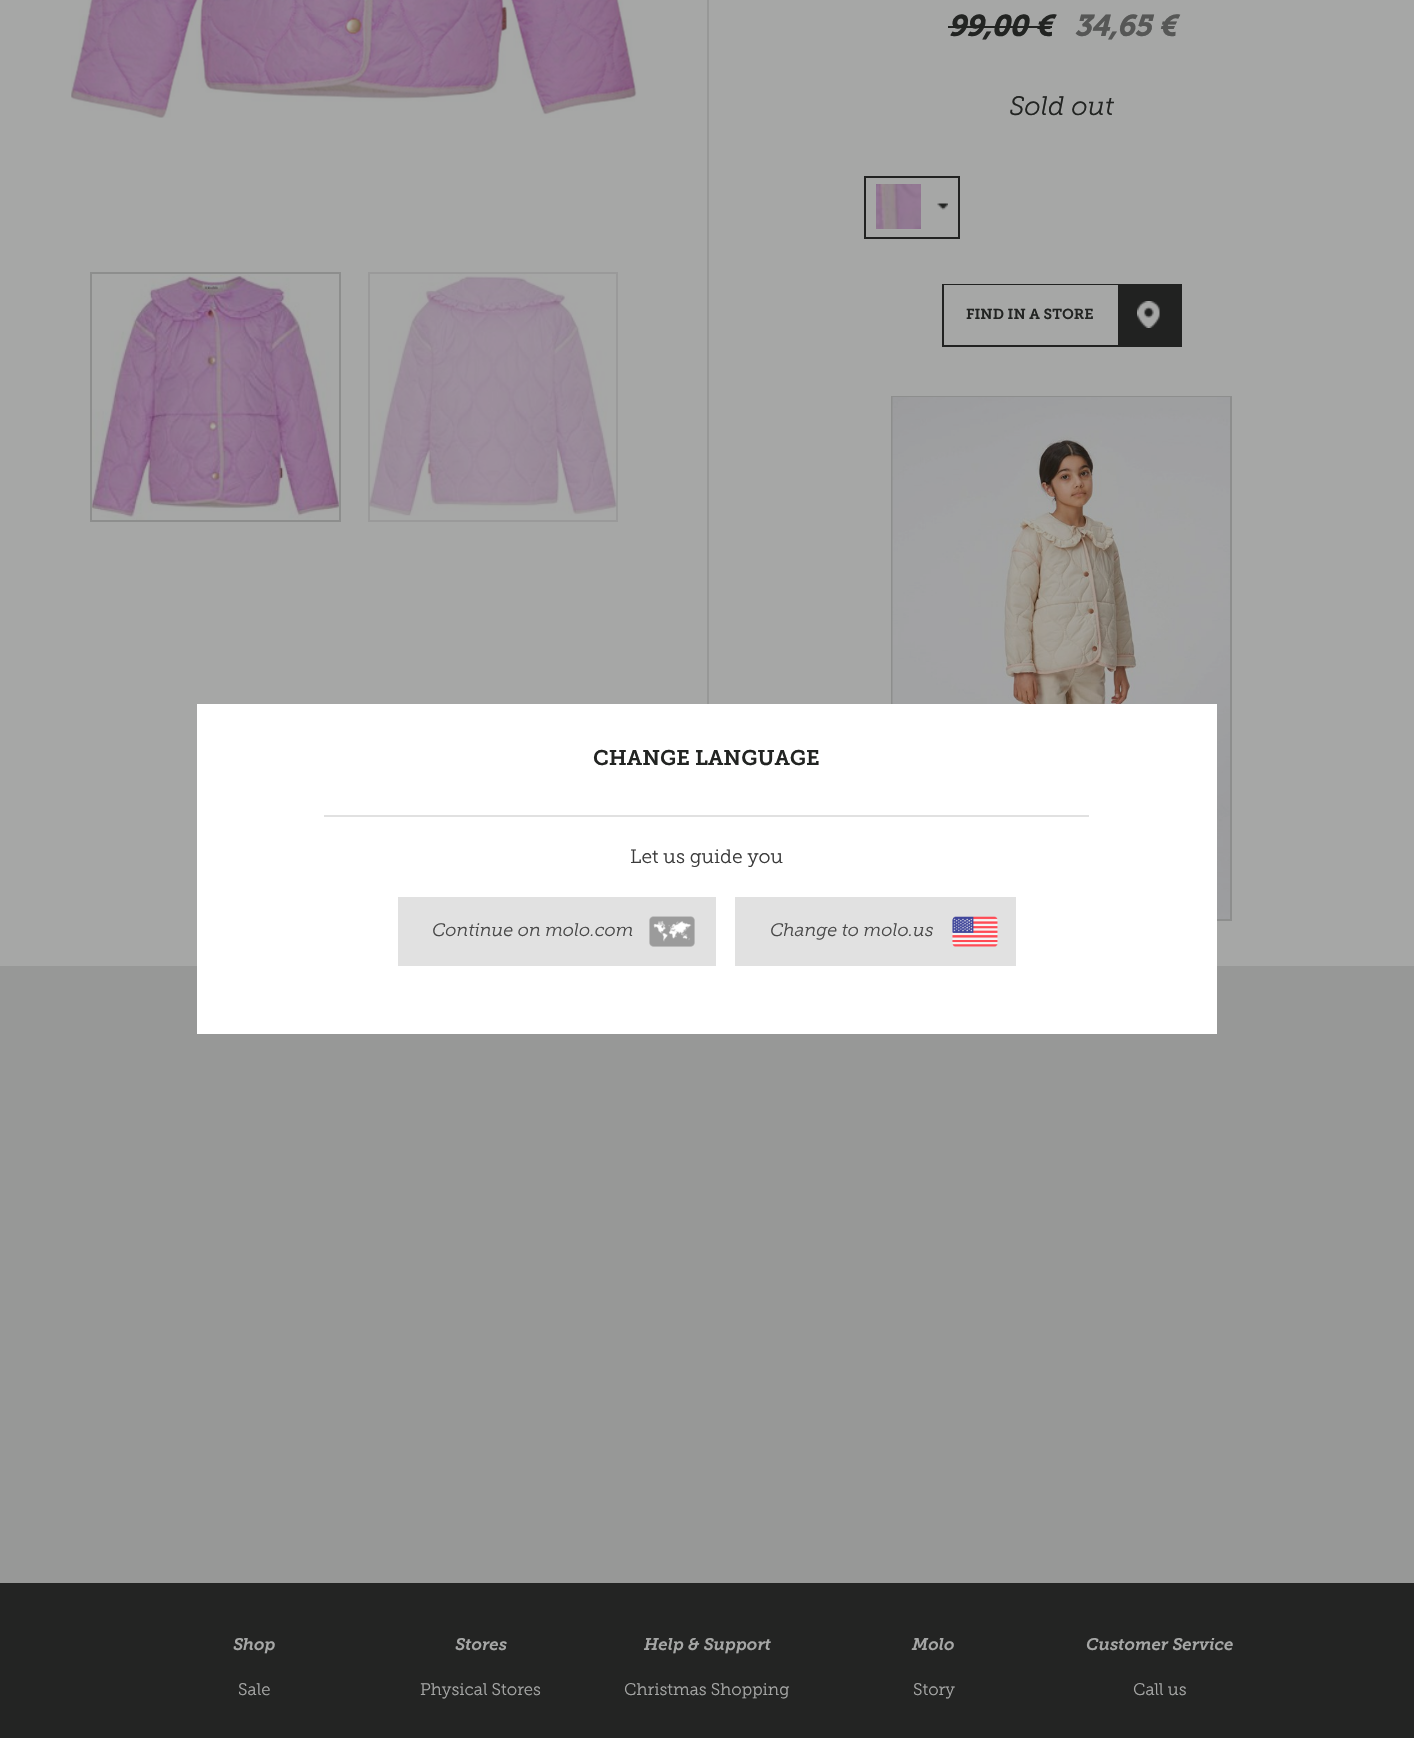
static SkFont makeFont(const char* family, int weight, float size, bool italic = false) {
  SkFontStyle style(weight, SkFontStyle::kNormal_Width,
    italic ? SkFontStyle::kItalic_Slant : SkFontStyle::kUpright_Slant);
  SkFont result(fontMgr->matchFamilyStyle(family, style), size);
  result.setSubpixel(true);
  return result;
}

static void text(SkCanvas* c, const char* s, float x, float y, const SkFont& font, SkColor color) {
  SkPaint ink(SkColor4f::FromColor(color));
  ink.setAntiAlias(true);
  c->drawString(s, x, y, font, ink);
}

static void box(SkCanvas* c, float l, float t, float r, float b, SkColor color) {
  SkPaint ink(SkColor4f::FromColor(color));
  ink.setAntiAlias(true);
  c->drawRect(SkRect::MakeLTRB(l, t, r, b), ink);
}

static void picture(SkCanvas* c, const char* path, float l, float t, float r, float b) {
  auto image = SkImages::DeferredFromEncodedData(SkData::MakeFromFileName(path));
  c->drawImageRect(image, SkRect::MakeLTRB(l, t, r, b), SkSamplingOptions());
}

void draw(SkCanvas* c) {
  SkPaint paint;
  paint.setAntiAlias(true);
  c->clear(0xffa6a7a6);
  box(c, 0, 966, 1414, 1583, 0xff979897);
  box(c, 707, 0, 709, 704, 0xff979897);
  picture(c, "img_01.png", 71, 0, 637, 118);
  picture(c, "img_02.png", 92, 274, 339, 520);
  paint.setStyle(SkPaint::kStroke_Style);
  paint.setStrokeWidth(2);
  paint.setColor(0xff8d8e8d);
  c->drawRect(SkRect::MakeLTRB(91, 273, 340, 521), paint);
  picture(c, "img_03.png", 369, 273, 617, 516);
  paint.setColor(0x808d8e8d);
  c->drawRect(SkRect::MakeLTRB(369, 273, 617, 521), paint);
  SkFont face1 = makeFont("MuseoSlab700", 700, 29, true);
  text(c, "99,00 €", 948, 36, face1, 0xff222422);
  box(c, 948, 26, 1052, 28, 0xff222422);
  text(c, "34,65 €", 1074, 36, face1, 0xff565756);
  SkFont face2 = makeFont("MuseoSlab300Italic", 400, 26.5f);
  text(c, "Sold out", 1009, 115, face2, 0xff222422);
  picture(c, "img_04.png", 937, 203, 948, 210);
  paint.setColor(0xff212221);
  c->drawRect(SkRect::MakeLTRB(865, 177, 959, 238), paint);
  picture(c, "img_05.png", 876, 184, 921, 229);
  box(c, 942, 284, 1182, 347, 0xff212221);
  picture(c, "img_06.png", 1137, 301, 1160, 328);
  box(c, 944, 285, 1118, 345, 0xffa6a7a6);
  SkFont face3 = makeFont("MuseoSlab700", 400, 14.5f);
  text(c, "FIND IN A STORE", 966, 319, face3, 0xff222422);
  paint.setColor(0xff8d8e8d);
  c->drawRect(SkRect::MakeLTRB(892, 397, 1231, 920), paint);
  picture(c, "img_07.png", 892, 397, 1230, 919);
  box(c, 0, 1583, 1414, 1738, 0xff232423);
  SkFont face4 = makeFont("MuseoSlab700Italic", 400, 16.75f);
  text(c, "Shop", 233, 1650, face4, 0xffa6a7a6);
  SkFont face5 = makeFont("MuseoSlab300", 400, 16.75f);
  text(c, "Sale", 238, 1695, face5, 0xffa6a7a6);
  text(c, "Stores", 455, 1650, face4, 0xffa6a7a6);
  text(c, "Physical Stores", 420, 1695, face5, 0xffa6a7a6);
  text(c, "Help & Support", 644, 1650, face4, 0xffa6a7a6);
  text(c, "Christmas Shopping", 624, 1695, face5, 0xffa6a7a6);
  text(c, "Molo", 912, 1650, face4, 0xffa6a7a6);
  text(c, "Story", 913, 1695, face5, 0xffa6a7a6);
  text(c, "Customer Service", 1086, 1650, face4, 0xffa6a7a6);
  text(c, "Call us", 1133, 1695, face5, 0xffa6a7a6);
  box(c, 197, 704, 1217, 1034, 0xffffffff);
  box(c, 324, 815, 1089, 817, 0xffe1e1e1);
  SkFont face6 = makeFont("MuseoSlab700", 400, 21.1f);
  text(c, "CHANGE LANGUAGE", 593, 765, face6, 0xff222422);
  SkFont face7 = makeFont("MuseoSlab300", 400, 19.25f);
  text(c, "Let us guide you", 630, 863, face7, 0xff3b3b3b);
  box(c, 398, 897, 716, 966, 0xffe1e1e1);
  picture(c, "img_08.png", 649, 916, 695, 947);
  SkFont face8 = makeFont("MuseoSlab300Italic", 400, 18);
  text(c, "Continue on molo.com", 432, 936, face8, 0xff494949);
  box(c, 735, 897, 1016, 966, 0xffe1e1e1);
  picture(c, "img_09.png", 952, 916, 998, 947);
  text(c, "Change to molo.us", 770, 936, face8, 0xff494949);
}
